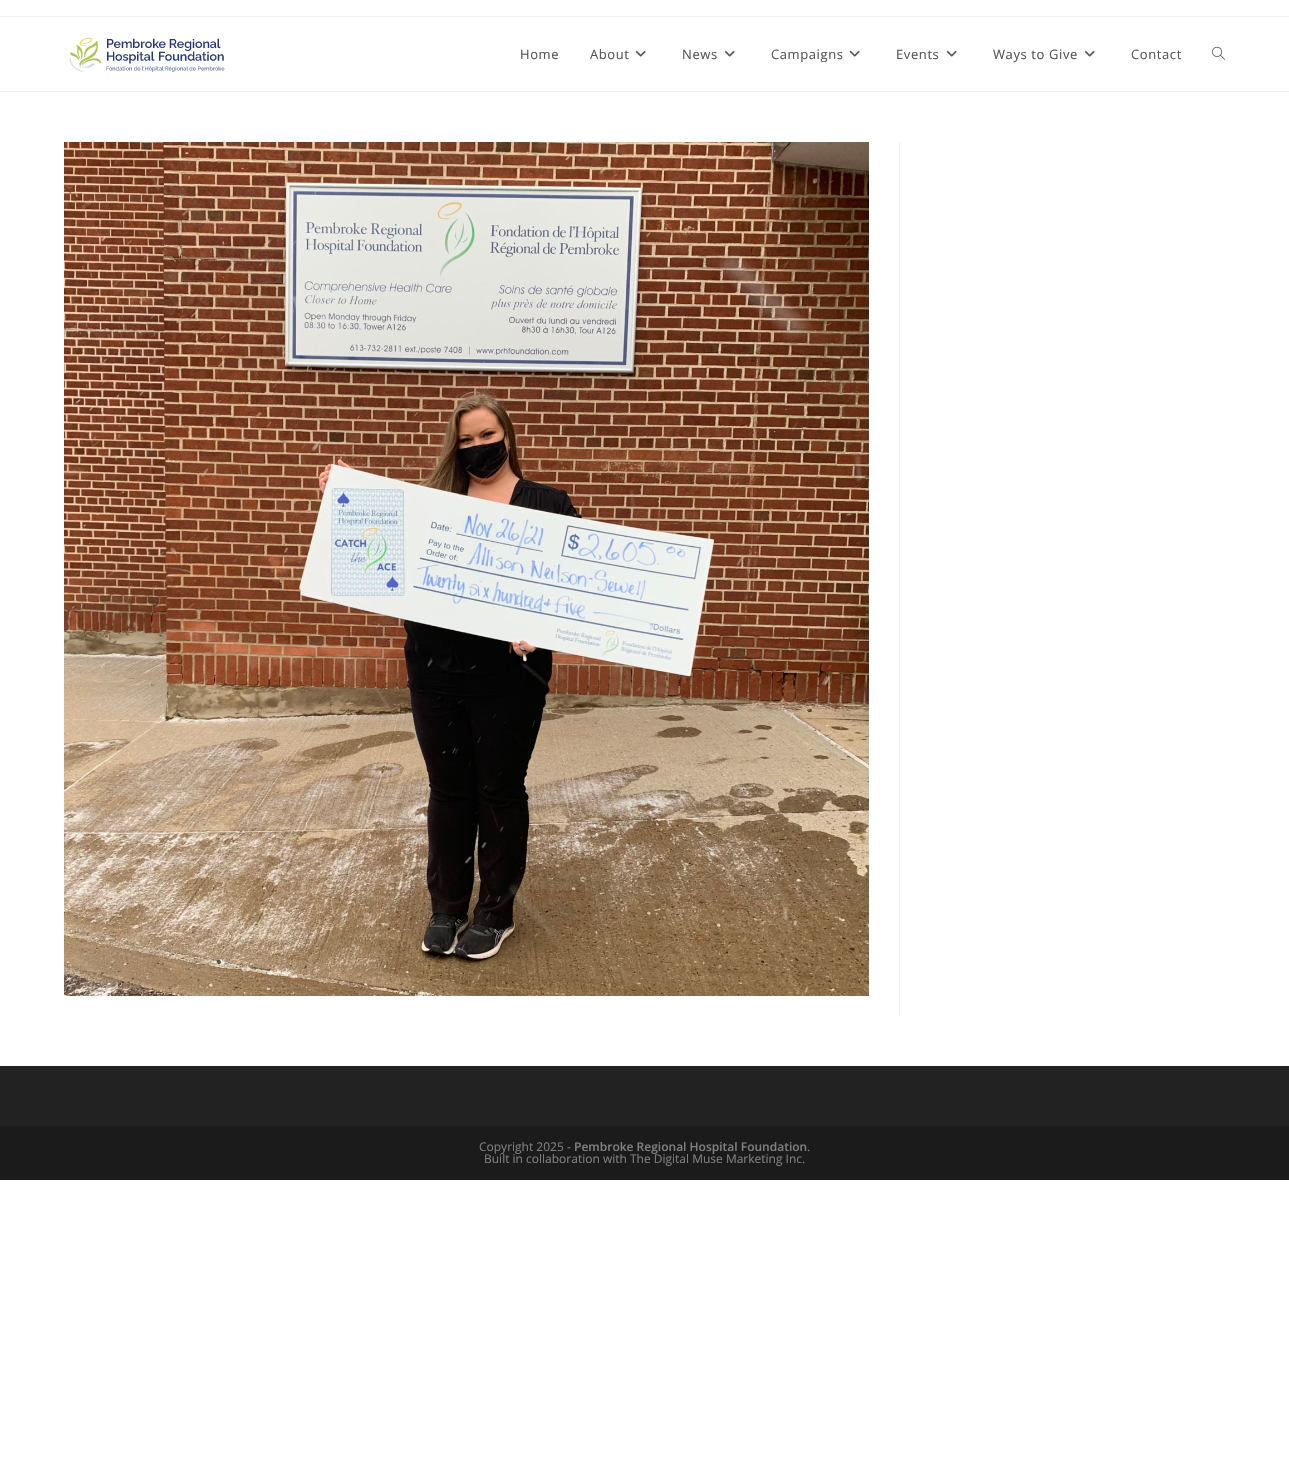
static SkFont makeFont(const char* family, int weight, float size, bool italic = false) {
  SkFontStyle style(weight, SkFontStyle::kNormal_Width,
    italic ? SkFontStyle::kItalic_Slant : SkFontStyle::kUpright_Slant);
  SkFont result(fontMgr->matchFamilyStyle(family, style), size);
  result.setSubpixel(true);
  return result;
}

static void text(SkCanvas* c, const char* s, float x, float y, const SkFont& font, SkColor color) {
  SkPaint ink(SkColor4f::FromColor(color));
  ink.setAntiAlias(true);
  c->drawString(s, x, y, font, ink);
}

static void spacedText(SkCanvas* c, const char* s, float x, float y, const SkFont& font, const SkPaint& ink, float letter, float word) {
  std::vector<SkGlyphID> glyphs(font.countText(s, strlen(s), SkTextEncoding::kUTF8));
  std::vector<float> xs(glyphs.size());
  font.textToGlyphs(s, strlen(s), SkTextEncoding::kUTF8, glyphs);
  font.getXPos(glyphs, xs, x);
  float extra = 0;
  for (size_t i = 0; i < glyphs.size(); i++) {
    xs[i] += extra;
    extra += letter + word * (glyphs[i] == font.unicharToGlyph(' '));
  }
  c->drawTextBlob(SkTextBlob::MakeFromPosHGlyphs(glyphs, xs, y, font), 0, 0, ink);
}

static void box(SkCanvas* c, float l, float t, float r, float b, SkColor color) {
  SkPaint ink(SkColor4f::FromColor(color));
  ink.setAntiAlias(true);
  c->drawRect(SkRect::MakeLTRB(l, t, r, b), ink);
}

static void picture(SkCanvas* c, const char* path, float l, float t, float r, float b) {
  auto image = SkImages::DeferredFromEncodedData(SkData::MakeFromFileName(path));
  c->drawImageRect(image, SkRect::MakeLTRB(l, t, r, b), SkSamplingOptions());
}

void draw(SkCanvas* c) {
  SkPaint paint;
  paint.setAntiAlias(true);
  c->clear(0xffffffff);
  box(c, 0, 16, 1289, 17, 0xfff1f1f1);
  box(c, 0, 91, 1289, 92, 0xfff1f1f1);
  picture(c, "img_01.png", 69, 37, 225, 72);
  SkFont face1 = makeFont("Open Sans", 400, 13);
  paint.setColor(0xff555555);
  spacedText(c, "Home", 520, 59, face1, paint, 0.6f, 0);
  spacedText(c, "About", 590, 59, face1, paint, 0.6f, 0);
  picture(c, "img_02.png", 635, 50, 646, 57);
  spacedText(c, "News", 682, 59, face1, paint, 0.6f, 0);
  picture(c, "img_02.png", 724, 50, 735, 57);
  spacedText(c, "Campaigns", 771, 59, face1, paint, 0.6f, 0);
  picture(c, "img_02.png", 849, 50, 860, 57);
  spacedText(c, "Events", 896, 59, face1, paint, 0.6f, 0);
  picture(c, "img_02.png", 946, 50, 957, 57);
  spacedText(c, "Ways to Give", 993, 59, face1, paint, 0.6f, 0);
  picture(c, "img_02.png", 1084, 50, 1095, 57);
  spacedText(c, "Contact", 1131, 59, face1, paint, 0.6f, 0);
  picture(c, "img_03.png", 1212, 46, 1225, 60);
  box(c, 899, 142, 900, 1016, 0xfff1f1f1);
  picture(c, "img_04.png", 64, 142, 869, 996);
  box(c, 0, 1066, 1289, 1126, 0xff222222);
  box(c, 0, 1126, 1289, 1180, 0xff1b1b1b);
  SkFont face2 = makeFont("Open Sans", 400, 12);
  text(c, "Copyright 2025 -", 479, 1151, face2, 0xff808080);
  SkFont face3 = makeFont("Open Sans", 600, 12);
  text(c, "Pembroke Regional Hospital Foundation", 574, 1151, face3, 0xff808080);
  text(c, ".", 807, 1151, face2, 0xff808080);
  text(c, "Built in collaboration with The Digital Muse Marketing Inc.", 484, 1163, face2, 0xff808080);
}
